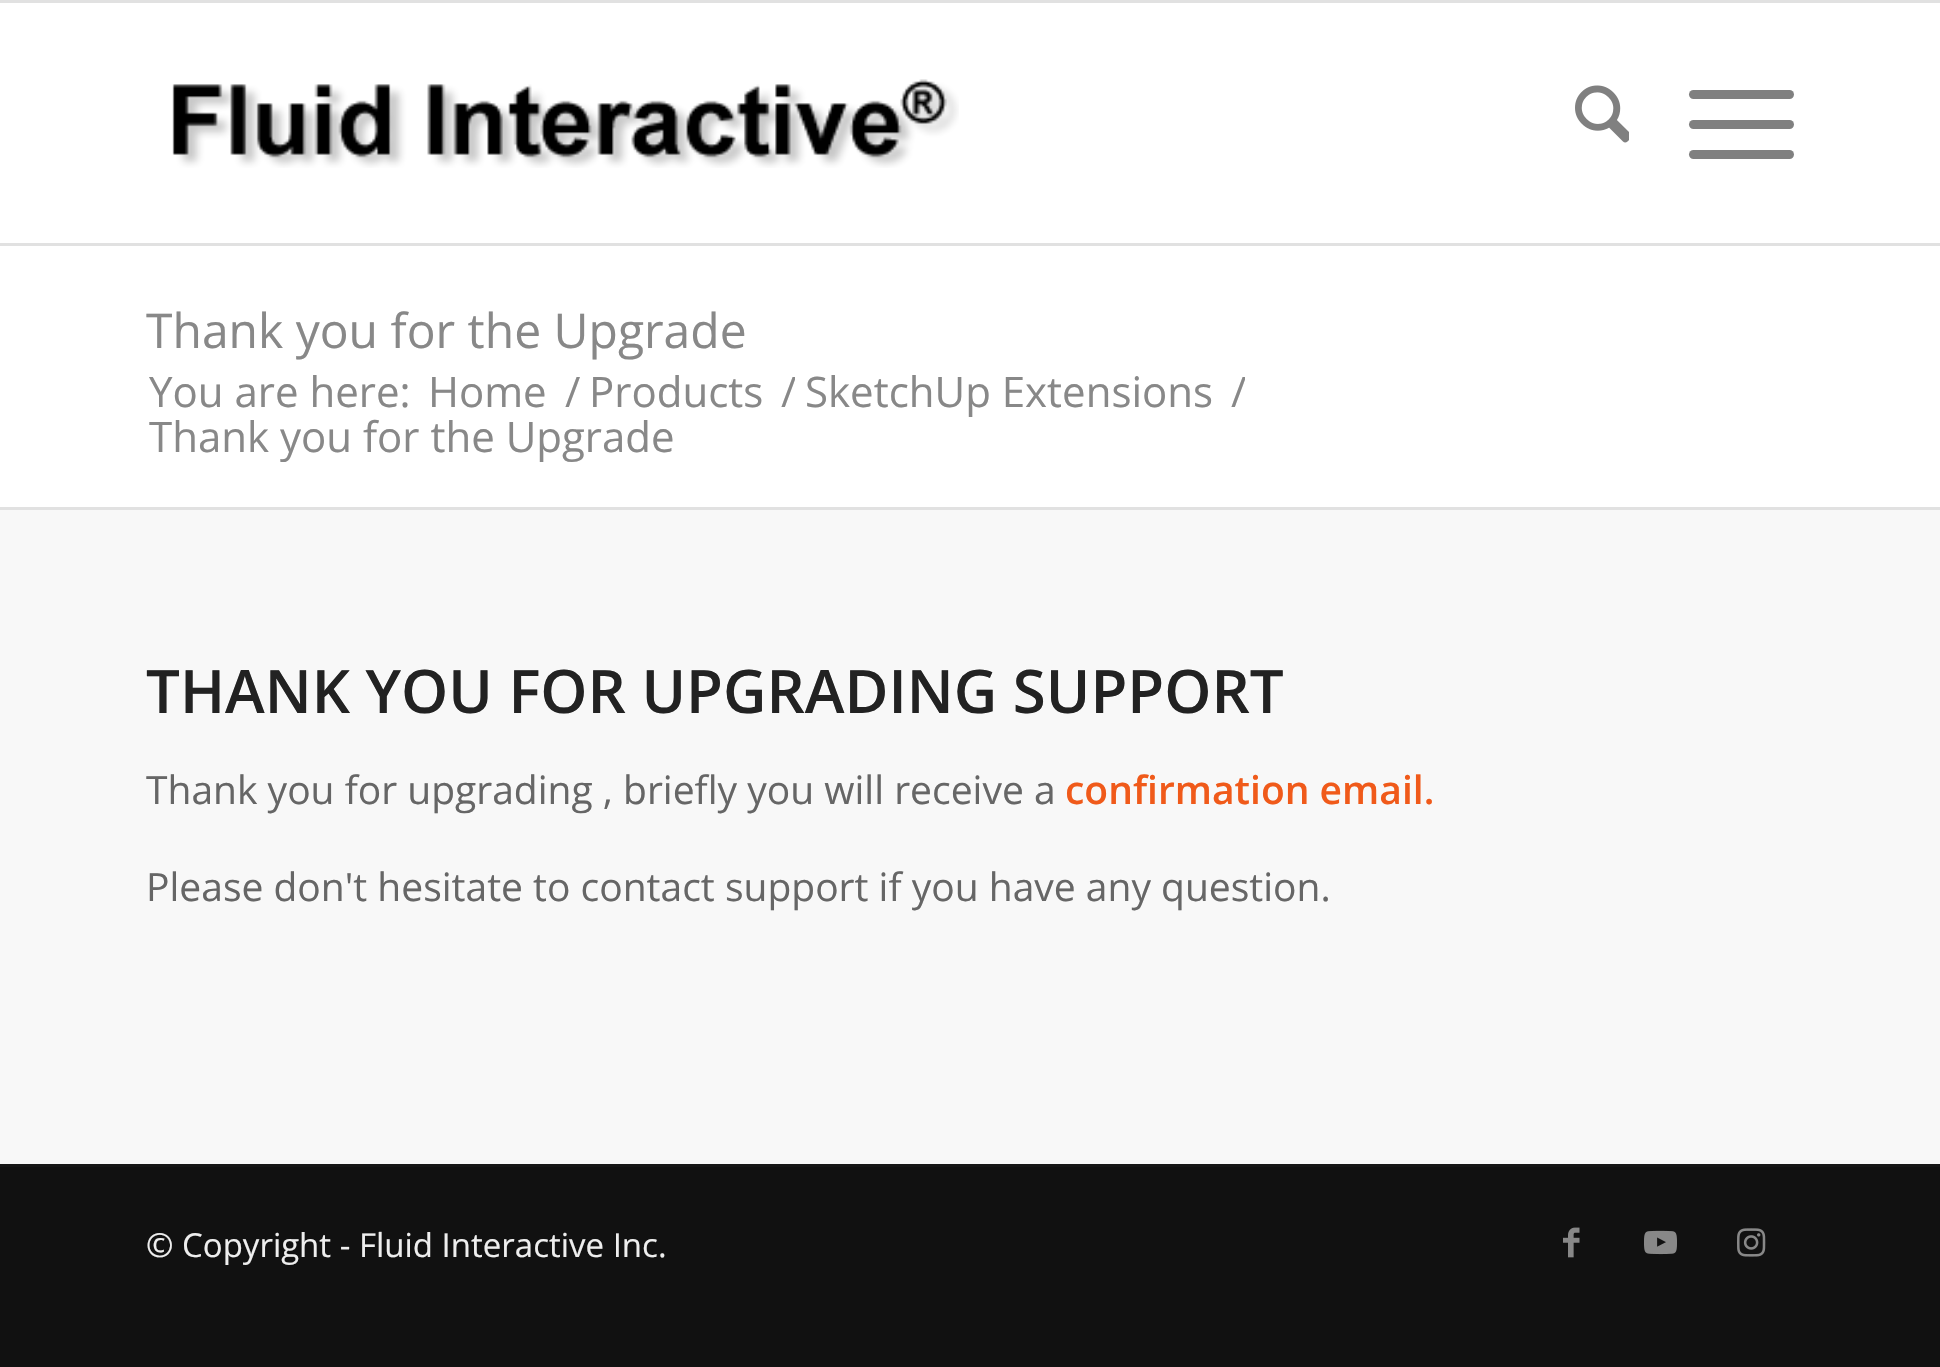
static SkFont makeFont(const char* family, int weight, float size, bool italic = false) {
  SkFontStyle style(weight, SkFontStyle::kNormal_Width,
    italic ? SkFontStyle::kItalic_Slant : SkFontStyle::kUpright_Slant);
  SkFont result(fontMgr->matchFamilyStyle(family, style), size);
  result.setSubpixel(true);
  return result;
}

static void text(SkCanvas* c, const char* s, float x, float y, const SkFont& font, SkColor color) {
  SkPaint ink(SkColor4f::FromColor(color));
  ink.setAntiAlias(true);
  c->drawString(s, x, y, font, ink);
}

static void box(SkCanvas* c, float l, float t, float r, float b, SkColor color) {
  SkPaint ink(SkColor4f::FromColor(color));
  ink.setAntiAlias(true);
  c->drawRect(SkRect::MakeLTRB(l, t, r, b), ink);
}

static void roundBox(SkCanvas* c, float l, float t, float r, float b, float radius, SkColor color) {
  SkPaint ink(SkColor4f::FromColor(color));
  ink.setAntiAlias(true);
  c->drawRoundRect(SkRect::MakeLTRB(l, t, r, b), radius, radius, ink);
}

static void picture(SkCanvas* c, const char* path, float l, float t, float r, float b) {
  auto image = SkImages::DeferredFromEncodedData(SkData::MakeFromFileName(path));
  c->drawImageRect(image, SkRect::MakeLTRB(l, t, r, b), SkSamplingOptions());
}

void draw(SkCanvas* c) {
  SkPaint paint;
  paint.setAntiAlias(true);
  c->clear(0xff111111);
  box(c, 0, 0, 1940, 3, 0xffe1e1e1);
  box(c, 0, 243, 1940, 246, 0xffe1e1e1);
  box(c, 0, 3, 1940, 243, 0xffffffff);
  picture(c, "img_01.png", 172, 79, 959, 168);
  picture(c, "img_02.png", 1575, 85, 1629, 143);
  roundBox(c, 1689, 120, 1794, 129, 4.5f, 0xff808080);
  roundBox(c, 1689, 90, 1794, 99, 4.5f, 0xff808080);
  roundBox(c, 1689, 150, 1794, 159, 4.5f, 0xff808080);
  box(c, 0, 246, 1940, 507, 0xffffffff);
  SkFont face1 = makeFont("Open Sans", 400, 48);
  text(c, "Thank you for the Upgrade", 146, 348, face1, 0xff888888);
  SkFont face2 = makeFont("Open Sans", 400, 42);
  text(c, "You are here:", 149, 407, face2, 0xff888888);
  text(c, "Home", 428, 407, face2, 0xff888888);
  text(c, "/", 565, 407, face2, 0xff888888);
  text(c, "Products", 589, 407, face2, 0xff888888);
  c->save();
  c->clipRect(SkRect::MakeLTRB(771, 369, 795, 414));
  text(c, "/", 781, 407, face2, 0xff888888);
  c->restore();
  text(c, "SketchUp Extensions", 805, 407, face2, 0xff888888);
  c->save();
  c->clipRect(SkRect::MakeLTRB(1221, 369, 1245, 414));
  text(c, "/", 1231, 407, face2, 0xff888888);
  c->restore();
  text(c, "Thank you for the Upgrade", 149, 452, face2, 0xff888888);
  box(c, 0, 510, 1940, 1164, 0xfff8f8f8);
  box(c, 0, 507, 1940, 510, 0xffe1e1e1);
  SkFont face3 = makeFont("Open Sans", 600, 60);
  text(c, "THANK YOU FOR UPGRADING SUPPORT", 146, 713, face3, 0xff222222);
  SkFont face4 = makeFont("Open Sans", 400, 39);
  text(c, "Thank you for upgrading , briefly you will receive a", 146, 804, face4, 0xff666666);
  SkFont face5 = makeFont("Open Sans", 600, 39);
  text(c, "confirmation email.", 1065, 804, face5, 0xfff05a1a);
  text(c, "Please don't hesitate to contact support if you have any question.", 146, 901, face4, 0xff666666);
  box(c, 0, 1164, 1940, 1167, 0xff161616);
  SkFont face6 = makeFont("Open Sans", 400, 33);
  text(c, "© Copyright - Fluid Interactive Inc.", 146, 1257, face6, 0xffeeeeee);
  picture(c, "img_03.png", 1563, 1227, 1580, 1258);
  picture(c, "img_04.png", 1644, 1230, 1677, 1255);
  picture(c, "img_05.png", 1737, 1228, 1766, 1257);
}
